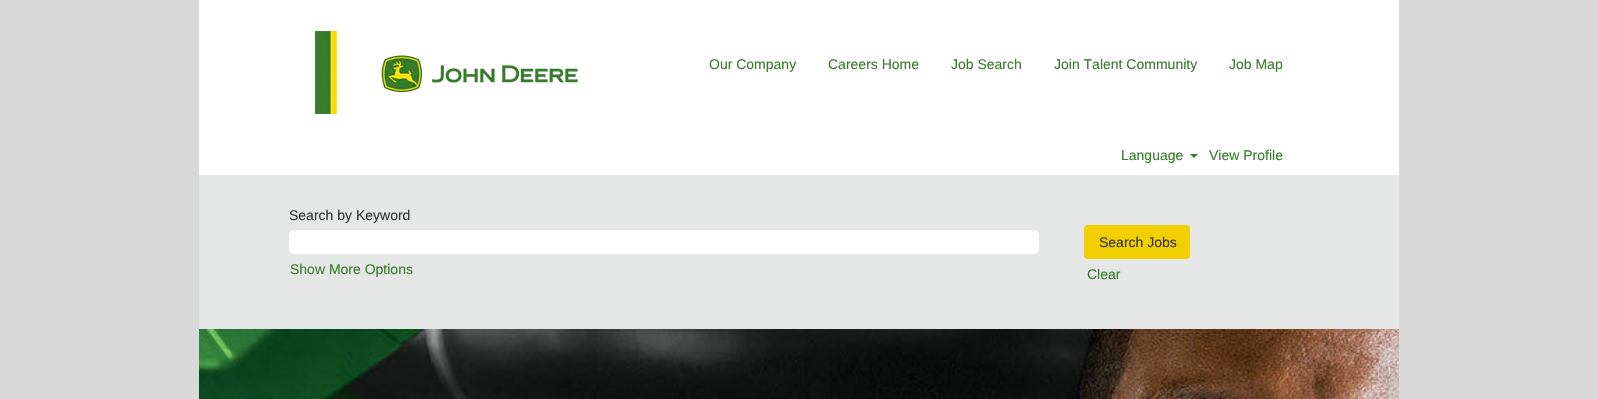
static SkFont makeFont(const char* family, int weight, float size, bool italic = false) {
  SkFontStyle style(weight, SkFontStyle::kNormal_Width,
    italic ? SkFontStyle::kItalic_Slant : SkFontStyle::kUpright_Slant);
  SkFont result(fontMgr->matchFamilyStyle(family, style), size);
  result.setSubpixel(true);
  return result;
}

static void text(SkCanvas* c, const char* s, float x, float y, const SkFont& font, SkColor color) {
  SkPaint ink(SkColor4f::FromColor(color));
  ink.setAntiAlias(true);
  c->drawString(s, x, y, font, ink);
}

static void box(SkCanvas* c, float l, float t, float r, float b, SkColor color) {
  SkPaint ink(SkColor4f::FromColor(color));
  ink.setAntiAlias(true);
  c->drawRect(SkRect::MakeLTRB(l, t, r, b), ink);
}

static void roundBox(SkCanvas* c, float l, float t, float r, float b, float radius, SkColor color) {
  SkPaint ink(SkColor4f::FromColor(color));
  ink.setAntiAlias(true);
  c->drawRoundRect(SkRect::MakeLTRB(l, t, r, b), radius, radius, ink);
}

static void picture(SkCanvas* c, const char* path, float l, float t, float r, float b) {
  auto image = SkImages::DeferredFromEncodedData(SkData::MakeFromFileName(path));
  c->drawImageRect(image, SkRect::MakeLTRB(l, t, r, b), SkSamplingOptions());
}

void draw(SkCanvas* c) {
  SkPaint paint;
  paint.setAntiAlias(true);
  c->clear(0xffd8d8d8);
  box(c, 199, 0, 1399, 175, 0xffffffff);
  picture(c, "img_01.png", 315, 31, 578, 114);
  SkFont face1 = makeFont("Liberation Sans", 400, 14);
  text(c, "Our Company", 709, 69, face1, 0xff367c2b);
  text(c, "Careers Home", 828, 69, face1, 0xff367c2b);
  text(c, "Job Search", 951, 69, face1, 0xff367c2b);
  text(c, "Join Talent Community", 1054, 69, face1, 0xff367c2b);
  text(c, "Job Map", 1229, 69, face1, 0xff367c2b);
  text(c, "Language", 1121, 160, face1, 0xff367c2b);
  paint.setColor(0xff367c2b);
  c->drawPath(SkPathBuilder().moveTo(1190, 154).lineTo(1198, 154).lineTo(1194, 158).close().detach(), paint);
  text(c, "View Profile", 1209, 160, face1, 0xff367c2b);
  box(c, 199, 175, 1399, 329, 0xffe5e6e6);
  text(c, "Search by Keyword", 289, 220, face1, 0xff333333);
  roundBox(c, 289, 230, 1039, 254, 5, 0xffffffff);
  text(c, "Show More Options", 290, 274, face1, 0xff367c2b);
  roundBox(c, 1084, 225, 1190, 259, 4, 0xfff1cf00);
  text(c, "Search Jobs", 1099, 247, face1, 0xff333333);
  text(c, "Clear", 1087, 279, face1, 0xff367c2b);
  picture(c, "img_02.png", 199, 329, 1399, 399);
}
